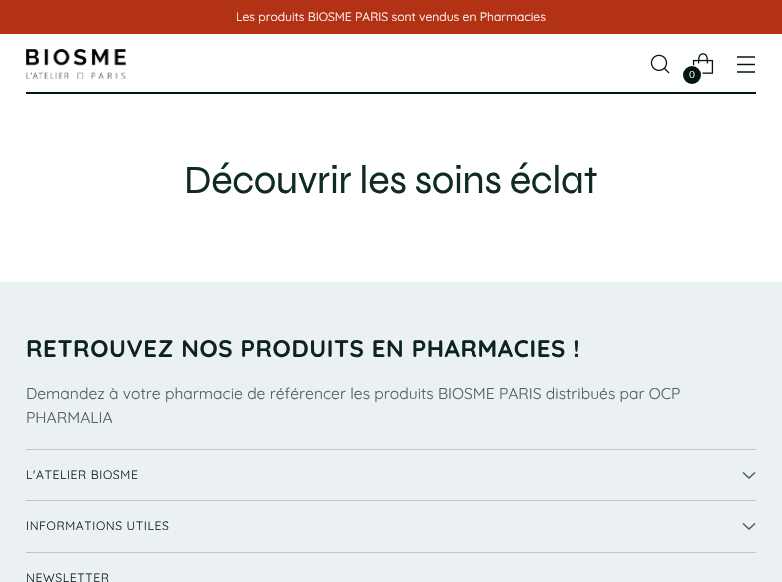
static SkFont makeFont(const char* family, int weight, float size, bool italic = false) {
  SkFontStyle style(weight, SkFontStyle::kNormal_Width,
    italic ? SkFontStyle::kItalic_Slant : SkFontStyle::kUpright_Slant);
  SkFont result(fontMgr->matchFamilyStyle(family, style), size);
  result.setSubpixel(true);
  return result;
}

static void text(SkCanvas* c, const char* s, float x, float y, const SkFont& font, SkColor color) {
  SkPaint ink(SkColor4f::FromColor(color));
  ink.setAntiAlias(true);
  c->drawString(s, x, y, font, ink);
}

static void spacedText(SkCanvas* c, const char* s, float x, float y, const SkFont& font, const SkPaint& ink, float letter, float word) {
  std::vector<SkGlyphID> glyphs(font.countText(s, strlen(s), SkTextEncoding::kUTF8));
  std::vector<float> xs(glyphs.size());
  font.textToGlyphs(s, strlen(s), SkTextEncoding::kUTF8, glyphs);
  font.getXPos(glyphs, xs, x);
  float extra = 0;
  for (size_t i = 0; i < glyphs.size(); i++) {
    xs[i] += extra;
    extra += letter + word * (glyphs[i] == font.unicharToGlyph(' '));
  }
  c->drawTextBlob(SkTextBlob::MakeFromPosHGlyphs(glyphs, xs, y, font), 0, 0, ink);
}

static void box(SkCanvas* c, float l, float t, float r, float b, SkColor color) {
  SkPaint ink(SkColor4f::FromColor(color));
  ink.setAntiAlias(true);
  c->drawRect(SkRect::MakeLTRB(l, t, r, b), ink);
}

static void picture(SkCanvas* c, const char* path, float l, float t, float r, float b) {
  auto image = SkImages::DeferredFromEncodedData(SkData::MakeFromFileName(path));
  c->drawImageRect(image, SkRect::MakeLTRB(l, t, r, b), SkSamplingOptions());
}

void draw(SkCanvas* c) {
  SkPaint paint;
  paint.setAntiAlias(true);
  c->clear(0xffffffff);
  box(c, 0, 0, 782, 34, 0xffb33114);
  SkFont face1 = makeFont("Quicksand", 400, 12.15f);
  text(c, "Les produits BIOSME PARIS sont vendus en Pharmacies", 236, 21, face1, 0xffffffff);
  box(c, 26, 92, 756, 94, 0xff031612);
  picture(c, "img_01.png", 26, 49, 126, 79);
  picture(c, "img_02.png", 650, 54, 670, 74);
  paint.setStyle(SkPaint::kStroke_Style);
  paint.setStrokeWidth(1.3f);
  paint.setColor(0xff031612);
  c->drawPath(SkPathBuilder().moveTo(737, 64.5f).lineTo(755, 64.5f).moveTo(737, 57).lineTo(755, 57).moveTo(737, 72).lineTo(755, 72).detach(), paint);
  picture(c, "img_03.png", 692, 53, 714, 74);
  paint.setStrokeWidth(2);
  paint.setColor(0xffffffff);
  c->drawCircle(692.5f, 75.5f, 9.5f, paint);
  paint.setStyle(SkPaint::kFill_Style);
  paint.setColor(0xff031612);
  c->drawCircle(692, 75, 9, paint);
  SkFont face2 = makeFont("Quicksand", 400, 10);
  text(c, "0", 689, 78, face2, 0xffffffff);
  SkFont face3 = makeFont("Syne", 400, 40.1f);
  paint.setColor(0xff102b26);
  spacedText(c, "Découvrir les soins éclat", 184, 193, face3, paint, -0.4f, 0);
  box(c, 0, 282, 782, 582, 0xffebf0f2);
  box(c, 26, 449, 756, 450, 0xffbec7c8);
  SkFont face4 = makeFont("Quicksand", 700, 24);
  paint.setColor(0xff0c231e);
  spacedText(c, "RETROUVEZ NOS PRODUITS EN PHARMACIES !", 26, 357, face4, paint, 0.6f, 0);
  SkFont face5 = makeFont("Quicksand", 400, 15.65f);
  text(c, "Demandez à votre pharmacie de référencer les produits BIOSME PARIS distribués par OCP", 26, 399, face5, 0xff4f615e);
  text(c, "PHARMALIA", 26, 423, face5, 0xff4f615e);
  box(c, 26, 500, 756, 501, 0xffbec7c8);
  spacedText(c, "L'ATELIER BIOSME", 26, 479, face1, paint, 0.6f, 0);
  paint.setStyle(SkPaint::kStroke_Style);
  paint.setStrokeWidth(1.6f);
  paint.setColor(0xff4f615e);
  c->drawPath(SkPathBuilder().moveTo(743, 472.5f).lineTo(749, 478).lineTo(755, 472.5f).moveTo(743, 523.5f).lineTo(749, 529).lineTo(755, 523.5f).detach(), paint);
  box(c, 26, 552, 756, 553, 0xffbec7c8);
  paint.setStyle(SkPaint::kFill_Style);
  paint.setColor(0xff0c231e);
  spacedText(c, "INFORMATIONS UTILES", 26, 530, face1, paint, 0.6f, 0);
  spacedText(c, "NEWSLETTER", 26, 582, face1, paint, 0.6f, 0);
}
